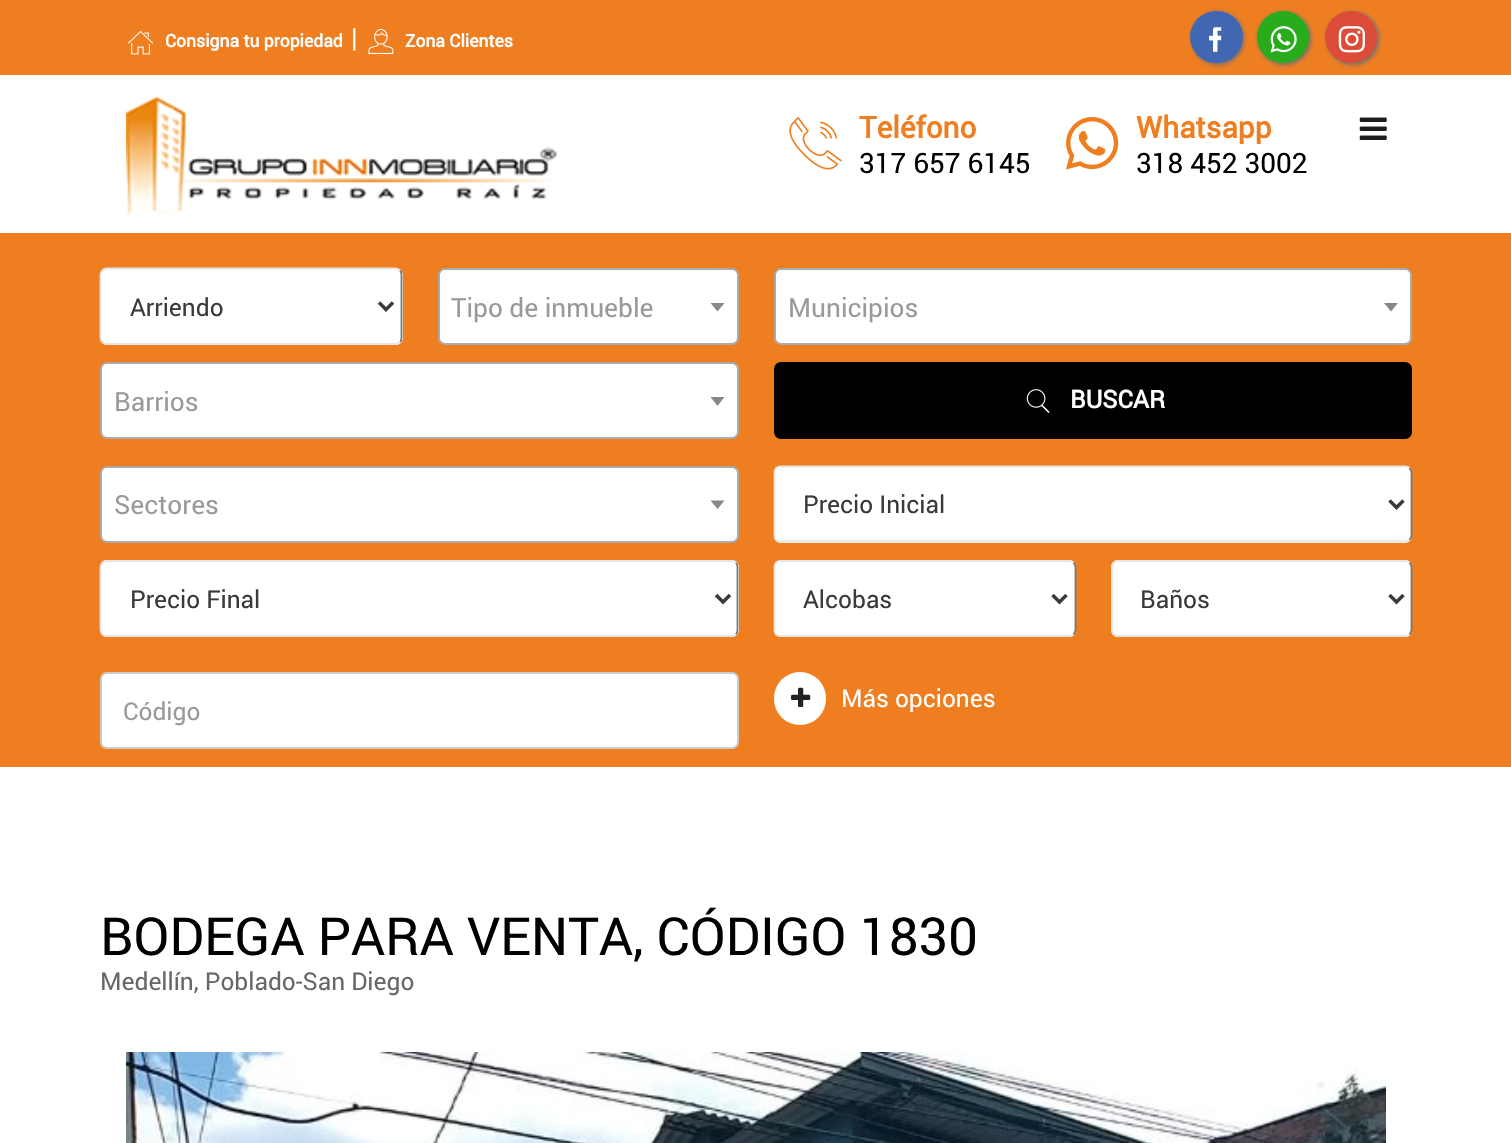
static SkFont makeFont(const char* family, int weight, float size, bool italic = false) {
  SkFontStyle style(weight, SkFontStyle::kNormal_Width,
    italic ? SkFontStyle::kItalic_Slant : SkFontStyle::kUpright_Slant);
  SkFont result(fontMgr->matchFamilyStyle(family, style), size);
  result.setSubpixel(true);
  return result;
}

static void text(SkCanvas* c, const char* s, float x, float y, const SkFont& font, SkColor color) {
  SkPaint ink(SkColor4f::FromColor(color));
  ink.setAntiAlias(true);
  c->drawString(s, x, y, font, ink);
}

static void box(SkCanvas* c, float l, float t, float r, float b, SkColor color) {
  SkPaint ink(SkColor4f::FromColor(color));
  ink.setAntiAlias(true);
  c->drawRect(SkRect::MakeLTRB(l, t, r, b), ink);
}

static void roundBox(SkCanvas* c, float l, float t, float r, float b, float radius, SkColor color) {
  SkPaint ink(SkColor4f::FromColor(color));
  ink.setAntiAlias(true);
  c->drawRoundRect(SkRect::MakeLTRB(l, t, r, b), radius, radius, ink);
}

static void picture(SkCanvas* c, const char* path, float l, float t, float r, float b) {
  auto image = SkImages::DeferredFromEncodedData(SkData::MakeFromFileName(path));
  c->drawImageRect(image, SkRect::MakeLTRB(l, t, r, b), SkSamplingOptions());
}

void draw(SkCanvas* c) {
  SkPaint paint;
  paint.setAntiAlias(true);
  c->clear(0xffffffff);
  box(c, 0, 0, 1511, 75, 0xffef7e20);
  picture(c, "img_01.png", 128, 30, 153, 55);
  SkFont face1 = makeFont("Roboto", 700, 17.5f);
  text(c, "Consigna tu propiedad", 165, 47, face1, 0xffffffff);
  SkFont face2 = makeFont("Roboto", 400, 26.25f);
  text(c, "|", 351, 47, face2, 0xffffffff);
  picture(c, "img_02.png", 368, 29, 394, 54);
  text(c, "Zona Clientes", 405, 47, face1, 0xffffffff);
  paint.setColor(0xff6f6f6f);
  paint.setMaskFilter(SkMaskFilter::MakeBlur(kNormal_SkBlurStyle, 2));
  c->drawRoundRect(SkRect::MakeLTRB(1192, 12, 1244, 65), 26, 26, paint);
  paint.setMaskFilter(nullptr);
  roundBox(c, 1190, 11, 1243, 63, 26, 0xff4267b2);
  picture(c, "img_03.png", 1209, 27, 1222, 52);
  paint.setMaskFilter(SkMaskFilter::MakeBlur(kNormal_SkBlurStyle, 2));
  c->drawRoundRect(SkRect::MakeLTRB(1258, 12, 1311, 65), 26.5f, 26.5f, paint);
  paint.setMaskFilter(nullptr);
  paint.setColor(0xff28ac1b);
  c->drawCircle(1283, 37, 26, paint);
  picture(c, "img_04.png", 1270, 26, 1297, 53);
  paint.setColor(0xff6f6f6f);
  paint.setMaskFilter(SkMaskFilter::MakeBlur(kNormal_SkBlurStyle, 2));
  c->drawRoundRect(SkRect::MakeLTRB(1327, 12, 1379, 65), 26, 26, paint);
  paint.setMaskFilter(nullptr);
  paint.setColor(0xffdd4b39);
  c->drawCircle(1351, 37, 26, paint);
  picture(c, "img_05.png", 1338, 26, 1365, 53);
  picture(c, "img_06.png", 126, 96, 557, 215);
  picture(c, "img_07.png", 1359, 117, 1387, 140);
  picture(c, "img_08.png", 789, 117, 842, 170);
  SkFont face3 = makeFont("Roboto", 700, 29.75f);
  text(c, "Teléfono", 859, 138, face3, 0xffef7e20);
  SkFont face4 = makeFont("Roboto", 400, 28);
  text(c, "317 657 6145", 859, 173, face4, 0xff000000);
  picture(c, "img_09.png", 1066, 117, 1119, 170);
  text(c, "Whatsapp", 1136, 138, face3, 0xffef7e20);
  text(c, "318 452 3002", 1136, 173, face4, 0xff000000);
  box(c, 0, 233, 1511, 767, 0xffef7e20);
  roundBox(c, 100, 268, 403, 345, 7, 0xffffffff);
  paint.setStyle(SkPaint::kStroke_Style);
  paint.setStrokeWidth(1.8f);
  paint.setColor(0xff767676);
  c->drawPath(SkPathBuilder().moveTo(400, 270.5f).cubicTo(401, 271.5f, 401.5f, 273, 401.5f, 275).lineTo(401.5f, 338).cubicTo(401.5f, 339.5f, 401, 341, 400, 342).detach(), paint);
  paint.setColor(0xffe5e5e5);
  c->drawPath(SkPathBuilder().moveTo(400, 342).cubicTo(398.5f, 343, 397, 344, 395.5f, 344).lineTo(107, 344).cubicTo(105, 344, 103.5f, 343, 102.5f, 342).cubicTo(101.5f, 341, 100.5f, 339.5f, 100.5f, 338).lineTo(100.5f, 275).cubicTo(100.5f, 273, 101.5f, 271.5f, 102.5f, 270.5f).cubicTo(103.5f, 269.5f, 105, 268.5f, 107, 268.5f).lineTo(395.5f, 268.5f).cubicTo(397, 268.5f, 398.5f, 269.5f, 400, 270.5f).detach(), paint);
  paint.setStrokeWidth(3.5f);
  paint.setColor(0xff3a3a3a);
  c->drawPath(SkPathBuilder().moveTo(379, 302.5f).lineTo(386, 309.5f).lineTo(393, 302.5f).detach(), paint);
  SkFont face5 = makeFont("Roboto", 400, 24.5f);
  text(c, "Arriendo", 130, 316, face5, 0xff3a3a3a);
  paint.setStyle(SkPaint::kFill_Style);
  paint.setColor(0xffffffff);
  c->drawRoundRect(SkRect::MakeLTRB(439, 269, 738, 344), 6, 6, paint);
  paint.setStyle(SkPaint::kStroke_Style);
  paint.setStrokeWidth(2);
  paint.setColor(0xffaaaaaa);
  c->drawRoundRect(SkRect::MakeLTRB(439, 269, 738, 344), 6, 6, paint);
  text(c, "Tipo de inmueble", 451, 317, face2, 0xff999999);
  paint.setStyle(SkPaint::kFill_Style);
  paint.setColor(0xff888888);
  c->drawPath(SkPathBuilder().moveTo(710.5f, 303).lineTo(724.5f, 303).lineTo(717.5f, 311.5f).close().detach(), paint);
  paint.setColor(0xffffffff);
  c->drawRoundRect(SkRect::MakeLTRB(775, 269, 1411, 344), 6, 6, paint);
  paint.setStyle(SkPaint::kStroke_Style);
  paint.setColor(0xffaaaaaa);
  c->drawRoundRect(SkRect::MakeLTRB(775, 269, 1411, 344), 6, 6, paint);
  text(c, "Municipios", 788, 317, face2, 0xff999999);
  paint.setStyle(SkPaint::kFill_Style);
  paint.setColor(0xff888888);
  c->drawPath(SkPathBuilder().moveTo(1384, 303).lineTo(1398, 303).lineTo(1391, 311.5f).close().detach(), paint);
  paint.setColor(0xffffffff);
  c->drawRoundRect(SkRect::MakeLTRB(101, 363, 738, 438), 6, 6, paint);
  paint.setStyle(SkPaint::kStroke_Style);
  paint.setColor(0xffaaaaaa);
  c->drawRoundRect(SkRect::MakeLTRB(101, 363, 738, 438), 6, 6, paint);
  text(c, "Barrios", 114, 411, face2, 0xff999999);
  paint.setStyle(SkPaint::kFill_Style);
  paint.setColor(0xff888888);
  c->drawPath(SkPathBuilder().moveTo(710.5f, 397).lineTo(724.5f, 397).lineTo(717.5f, 406).close().detach(), paint);
  roundBox(c, 774, 362, 1412, 439, 7, 0xff000000);
  picture(c, "img_10.png", 1026, 389, 1050, 413);
  SkFont face6 = makeFont("Roboto", 700, 24.5f);
  text(c, "BUSCAR", 1070, 408, face6, 0xffffffff);
  paint.setColor(0xffffffff);
  c->drawRoundRect(SkRect::MakeLTRB(101, 467, 738, 542), 6, 6, paint);
  paint.setStyle(SkPaint::kStroke_Style);
  paint.setColor(0xffaaaaaa);
  c->drawRoundRect(SkRect::MakeLTRB(101, 467, 738, 542), 6, 6, paint);
  text(c, "Sectores", 114, 514, face2, 0xff999999);
  paint.setStyle(SkPaint::kFill_Style);
  paint.setColor(0xff888888);
  c->drawPath(SkPathBuilder().moveTo(710.5f, 500.5f).lineTo(724.5f, 500.5f).lineTo(717.5f, 509).close().detach(), paint);
  roundBox(c, 774, 466, 1412, 543, 7, 0xffffffff);
  paint.setStyle(SkPaint::kStroke_Style);
  paint.setStrokeWidth(1.8f);
  paint.setColor(0xff767676);
  c->drawPath(SkPathBuilder().moveTo(1409.5f, 468).cubicTo(1410.5f, 469.5f, 1411.5f, 471, 1411.5f, 472.5f).lineTo(1411.5f, 535.5f).cubicTo(1411.5f, 537, 1410.5f, 538.5f, 1409.5f, 540).detach(), paint);
  paint.setColor(0xffe5e5e5);
  c->drawPath(SkPathBuilder().moveTo(1409.5f, 540).cubicTo(1408.5f, 541, 1407, 541.5f, 1405, 541.5f).lineTo(780.5f, 541.5f).cubicTo(779, 541.5f, 777.5f, 541, 776, 540).cubicTo(775, 538.5f, 774.5f, 537, 774.5f, 535.5f).lineTo(774.5f, 472.5f).cubicTo(774.5f, 471, 775, 469.5f, 776, 468).cubicTo(777.5f, 467, 779, 466.5f, 780.5f, 466.5f).lineTo(1405, 466.5f).cubicTo(1407, 466.5f, 1408.5f, 467, 1409.5f, 468).detach(), paint);
  paint.setStrokeWidth(3.5f);
  paint.setColor(0xff3a3a3a);
  c->drawPath(SkPathBuilder().moveTo(1389.5f, 500.5f).lineTo(1396.5f, 507.5f).lineTo(1403.5f, 500.5f).detach(), paint);
  text(c, "Precio Inicial", 803, 513, face5, 0xff3a3a3a);
  roundBox(c, 100, 560, 739, 637, 7, 0xffffffff);
  paint.setStrokeWidth(1.8f);
  paint.setColor(0xff767676);
  c->drawPath(SkPathBuilder().moveTo(736, 562.5f).cubicTo(737, 564, 737.5f, 565.5f, 737.5f, 567).lineTo(737.5f, 630).cubicTo(737.5f, 631.5f, 737, 633, 736, 634.5f).detach(), paint);
  paint.setColor(0xffe5e5e5);
  c->drawPath(SkPathBuilder().moveTo(736, 634.5f).cubicTo(734.5f, 635.5f, 733, 636, 731.5f, 636).lineTo(107, 636).cubicTo(105, 636, 103.5f, 635.5f, 102.5f, 634.5f).cubicTo(101.5f, 633, 100.5f, 631.5f, 100.5f, 630).lineTo(100.5f, 567).cubicTo(100.5f, 565.5f, 101.5f, 564, 102.5f, 562.5f).cubicTo(103.5f, 561.5f, 105, 561, 107, 561).lineTo(731.5f, 561).cubicTo(733, 561, 734.5f, 561.5f, 736, 562.5f).detach(), paint);
  paint.setStrokeWidth(3.5f);
  paint.setColor(0xff3a3a3a);
  c->drawPath(SkPathBuilder().moveTo(716, 595).lineTo(723, 602).lineTo(730, 595).detach(), paint);
  text(c, "Precio Final", 130, 608, face5, 0xff3a3a3a);
  roundBox(c, 774, 560, 1076, 637, 7, 0xffffffff);
  paint.setStrokeWidth(1.8f);
  paint.setColor(0xff767676);
  c->drawPath(SkPathBuilder().moveTo(1073.5f, 562.5f).cubicTo(1074.5f, 564, 1075.5f, 565.5f, 1075.5f, 567).lineTo(1075.5f, 630).cubicTo(1075.5f, 631.5f, 1074.5f, 633, 1073.5f, 634.5f).detach(), paint);
  paint.setColor(0xffe5e5e5);
  c->drawPath(SkPathBuilder().moveTo(1073.5f, 634.5f).cubicTo(1072.5f, 635.5f, 1071, 636, 1069, 636).lineTo(780.5f, 636).cubicTo(779, 636, 777.5f, 635.5f, 776, 634.5f).cubicTo(775, 633, 774.5f, 631.5f, 774.5f, 630).lineTo(774.5f, 567).cubicTo(774.5f, 565.5f, 775, 564, 776, 562.5f).cubicTo(777.5f, 561.5f, 779, 561, 780.5f, 561).lineTo(1069, 561).cubicTo(1071, 561, 1072.5f, 561.5f, 1073.5f, 562.5f).detach(), paint);
  paint.setStrokeWidth(3.5f);
  paint.setColor(0xff3a3a3a);
  c->drawPath(SkPathBuilder().moveTo(1052.5f, 595).lineTo(1059.5f, 602).lineTo(1066.5f, 595).detach(), paint);
  text(c, "Alcobas", 803, 608, face5, 0xff3a3a3a);
  roundBox(c, 1111, 560, 1412, 637, 7, 0xffffffff);
  paint.setStrokeWidth(1.8f);
  paint.setColor(0xff767676);
  c->drawPath(SkPathBuilder().moveTo(1409.5f, 562.5f).cubicTo(1410.5f, 564, 1411.5f, 565.5f, 1411.5f, 567).lineTo(1411.5f, 630).cubicTo(1411.5f, 631.5f, 1410.5f, 633, 1409.5f, 634.5f).detach(), paint);
  paint.setColor(0xffe5e5e5);
  c->drawPath(SkPathBuilder().moveTo(1409.5f, 634.5f).cubicTo(1408.5f, 635.5f, 1407, 636, 1405, 636).lineTo(1118, 636).cubicTo(1116.5f, 636, 1115, 635.5f, 1114, 634.5f).cubicTo(1113, 633, 1112, 631.5f, 1112, 630).lineTo(1112, 567).cubicTo(1112, 565.5f, 1113, 564, 1114, 562.5f).cubicTo(1115, 561.5f, 1116.5f, 561, 1118, 561).lineTo(1405, 561).cubicTo(1407, 561, 1408.5f, 561.5f, 1409.5f, 562.5f).detach(), paint);
  paint.setStrokeWidth(3.5f);
  paint.setColor(0xff3a3a3a);
  c->drawPath(SkPathBuilder().moveTo(1389.5f, 595).lineTo(1396.5f, 602).lineTo(1403.5f, 595).detach(), paint);
  text(c, "Baños", 1140, 608, face5, 0xff3a3a3a);
  paint.setStyle(SkPaint::kFill_Style);
  paint.setColor(0xffffffff);
  c->drawRoundRect(SkRect::MakeLTRB(101, 673, 738, 748), 6, 6, paint);
  paint.setStyle(SkPaint::kStroke_Style);
  paint.setStrokeWidth(2);
  paint.setColor(0xffcccccc);
  c->drawRoundRect(SkRect::MakeLTRB(101, 673, 738, 748), 6, 6, paint);
  text(c, "Código", 123, 720, face5, 0xff999999);
  roundBox(c, 774, 672, 826, 725, 26, 0xffffffff);
  picture(c, "img_11.png", 791, 687, 811, 707);
  text(c, "Más opciones", 841, 707, face5, 0xffffffff);
  SkFont face7 = makeFont("Roboto", 400, 52.5f);
  text(c, "BODEGA PARA VENTA, CÓDIGO 1830", 100, 955, face7, 0xff000000);
  text(c, "Medellín, Poblado-San Diego", 100, 990, face5, 0xff676767);
  picture(c, "img_12.png", 126, 1052, 1386, 1143);
}
